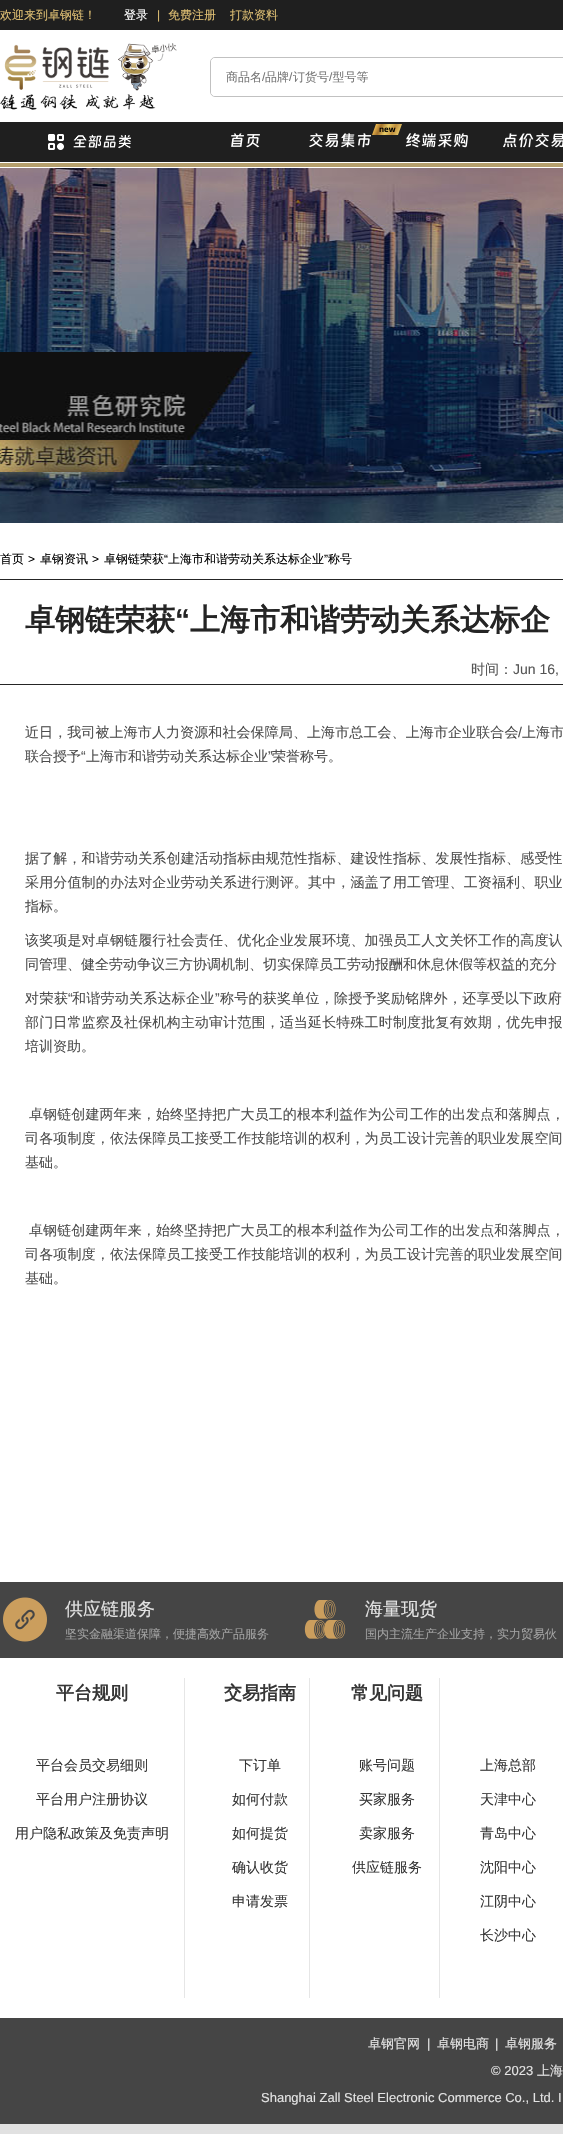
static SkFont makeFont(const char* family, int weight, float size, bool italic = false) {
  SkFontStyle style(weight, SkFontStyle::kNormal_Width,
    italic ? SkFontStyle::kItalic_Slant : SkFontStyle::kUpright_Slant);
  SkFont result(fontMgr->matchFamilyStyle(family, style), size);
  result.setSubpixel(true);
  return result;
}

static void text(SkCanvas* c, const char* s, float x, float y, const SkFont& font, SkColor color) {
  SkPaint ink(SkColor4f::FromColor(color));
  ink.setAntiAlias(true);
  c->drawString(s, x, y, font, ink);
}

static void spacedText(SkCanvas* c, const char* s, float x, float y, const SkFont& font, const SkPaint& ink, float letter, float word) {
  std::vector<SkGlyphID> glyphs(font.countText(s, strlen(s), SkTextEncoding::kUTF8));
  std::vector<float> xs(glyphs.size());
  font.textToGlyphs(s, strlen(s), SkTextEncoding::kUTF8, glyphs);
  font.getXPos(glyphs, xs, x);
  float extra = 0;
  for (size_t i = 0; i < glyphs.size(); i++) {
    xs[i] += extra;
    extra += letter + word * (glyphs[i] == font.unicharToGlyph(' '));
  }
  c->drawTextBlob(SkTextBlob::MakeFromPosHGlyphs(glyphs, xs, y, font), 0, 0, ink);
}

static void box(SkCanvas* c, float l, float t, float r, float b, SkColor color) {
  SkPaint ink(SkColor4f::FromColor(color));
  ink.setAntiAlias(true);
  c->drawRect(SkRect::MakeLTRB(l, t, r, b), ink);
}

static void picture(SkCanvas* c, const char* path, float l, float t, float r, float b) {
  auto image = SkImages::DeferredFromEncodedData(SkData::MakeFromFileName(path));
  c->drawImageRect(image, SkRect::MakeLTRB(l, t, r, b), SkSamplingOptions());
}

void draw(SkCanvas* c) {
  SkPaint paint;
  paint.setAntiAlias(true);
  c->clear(0xffffffff);
  box(c, 0, 0, 563, 30, 0xff1f1f1f);
  SkFont face1 = makeFont("WenQuanYi Zen Hei", 500, 12);
  text(c, "欢迎来到卓钢链！", 0, 19, face1, 0xffdfbf73);
  text(c, "登录", 124, 19, face1, 0xffffffff);
  SkFont face2 = makeFont("Liberation Sans", 400, 12);
  text(c, "|", 157, 19, face2, 0xffdfbf73);
  text(c, "免费注册", 168, 19, face1, 0xffdfbf73);
  text(c, "打款资料", 230, 19, face1, 0xffdfbf73);
  picture(c, "img_01.png", 0, 43, 177, 110);
  paint.setStyle(SkPaint::kStroke_Style);
  paint.setStrokeWidth(1);
  paint.setColor(0xffc1c1c1);
  c->drawRoundRect(SkRect::MakeLTRB(210.5f, 57.5f, 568.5f, 96.5f), 4.5f, 4.5f, paint);
  paint.setStyle(SkPaint::kFill_Style);
  paint.setColor(0xffffffff);
  c->drawPath(SkPathBuilder().moveTo(215, 58).lineTo(563, 58).lineTo(563, 96).lineTo(215, 96).cubicTo(213, 96, 211, 94, 211, 92).lineTo(211, 62).cubicTo(211, 60, 213, 58, 215, 58).close().detach(), paint);
  text(c, "商品名", 226, 81, face1, 0xff757575);
  text(c, "/", 262, 81, face2, 0xff757575);
  text(c, "品牌", 265, 81, face1, 0xff757575);
  text(c, "/", 289, 81, face2, 0xff757575);
  text(c, "订货号 型号等", 293, 81, face1, 0xff757575);
  text(c, "/", 329, 81, face2, 0xff757575);
  box(c, 0, 122, 563, 162, 0xff1f1f1f);
  picture(c, "img_02.png", 48, 134, 131, 150);
  picture(c, "img_03.png", 231, 133, 260, 148);
  picture(c, "img_04.png", 372, 124, 402, 135);
  picture(c, "img_05.png", 309, 133, 371, 148);
  picture(c, "img_06.png", 405, 133, 468, 148);
  picture(c, "img_07.png", 503, 133, 563, 148);
  box(c, 0, 163, 563, 167, 0xffb6a06d);
  picture(c, "img_08.png", 0, 168, 563, 523);
  text(c, "首页", 0, 563, face1, 0xff000000);
  text(c, ">", 28, 563, face2, 0xff000000);
  text(c, "卓钢资讯", 40, 563, face1, 0xff000000);
  text(c, ">", 92, 563, face2, 0xff000000);
  text(c, "卓钢链荣获", 104, 563, face1, 0xff000000);
  text(c, "“", 164, 563, face2, 0xff000000);
  text(c, "上海市和谐劳动关系达标企业", 168, 563, face1, 0xff000000);
  text(c, "”", 324, 563, face2, 0xff000000);
  text(c, "称号", 328, 563, face1, 0xff000000);
  box(c, 0, 579, 563, 580, 0xff252525);
  SkFont face3 = makeFont("WenQuanYi Zen Hei", 700, 30);
  text(c, "卓钢链荣获", 25, 630, face3, 0xff242424);
  SkFont face4 = makeFont("Liberation Sans", 700, 30);
  text(c, "“", 175, 630, face4, 0xff242424);
  text(c, "上海市和谐劳动关系达标企", 190, 630, face3, 0xff242424);
  box(c, 0, 684, 563, 685, 0xff252525);
  SkFont face5 = makeFont("WenQuanYi Zen Hei", 500, 14);
  text(c, "时间：", 471, 674, face5, 0xff555555);
  SkFont face6 = makeFont("Liberation Sans", 400, 14);
  text(c, "Jun 16,", 513, 674, face6, 0xff555555);
  paint.setColor(0xff4d4d4d);
  spacedText(c, "近日，我司被上海市人力资源和社会保障局、上海市总工会、上海市企业联合会", 25, 737, face5, paint, 0.1f, 0);
  text(c, "/", 518, 737, face6, 0xff4d4d4d);
  spacedText(c, "上海市", 522, 737, face5, paint, 0.1f, 0);
  text(c, "联合授予", 25, 761, face5, 0xff4d4d4d);
  text(c, "“", 81, 761, face6, 0xff4d4d4d);
  text(c, "上海市和谐劳动关系达标企业", 86, 761, face5, 0xff4d4d4d);
  text(c, "”", 268, 761, face6, 0xff4d4d4d);
  text(c, "荣誉称号。", 272, 761, face5, 0xff4d4d4d);
  spacedText(c, "据了解，和谐劳动关系创建活动指标由规范性指标、建设性指标、发展性指标、感受性", 25, 863, face5, paint, 0.15f, 0);
  spacedText(c, "采用分值制的办法对企业劳动关系进行测评。其中，涵盖了用工管理、工资福利、职业", 25, 887, face5, paint, 0.15f, 0);
  text(c, "指标。", 25, 911, face5, 0xff4d4d4d);
  spacedText(c, "该奖项是对卓钢链履行社会责任、优化企业发展环境、加强员工人文关怀工作的高度认", 25, 945, face5, paint, 0.15f, 0);
  text(c, "同管理、健全劳动争议三方协调机制、切实保障员工劳动报酬和休息休假等权益的充分", 25, 969, face5, 0xff4d4d4d);
  spacedText(c, "对荣获", 25, 1003, face5, paint, 0.5f, 0);
  text(c, "“", 68, 1003, face6, 0xff4d4d4d);
  spacedText(c, "和谐劳动关系达标企业", 72, 1003, face5, paint, 0.25f, 0);
  text(c, "”", 215, 1003, face6, 0xff4d4d4d);
  spacedText(c, "称号的获奖单位，除授予奖励铭牌外，还享受以下政府", 220, 1003, face5, paint, 0.25f, 0);
  spacedText(c, "部门日常监察及社保机构主动审计范围，适当延长特殊工时制度批复有效期，优先申报", 25, 1027, face5, paint, 0.15f, 0);
  text(c, "培训资助。", 25, 1051, face5, 0xff4d4d4d);
  spacedText(c, "卓钢链创建两年来，始终坚持把广大员工的根本利益作为公司工作的出发点和落脚点，", 29, 1119, face5, paint, 0.1f, 0);
  spacedText(c, "司各项制度，依法保障员工接受工作技能培训的权利，为员工设计完善的职业发展空间", 25, 1143, face5, paint, 0.15f, 0);
  text(c, "基础。", 25, 1167, face5, 0xff4d4d4d);
  spacedText(c, "卓钢链创建两年来，始终坚持把广大员工的根本利益作为公司工作的出发点和落脚点，", 29, 1235, face5, paint, 0.1f, 0);
  spacedText(c, "司各项制度，依法保障员工接受工作技能培训的权利，为员工设计完善的职业发展空间", 25, 1259, face5, paint, 0.15f, 0);
  text(c, "基础。", 25, 1283, face5, 0xff4d4d4d);
  box(c, 0, 2124, 563, 2134, 0xffe1e1e1);
  box(c, 0, 1582, 563, 1658, 0xff454545);
  picture(c, "img_09.png", 3, 1597, 47, 1642);
  SkFont face7 = makeFont("WenQuanYi Zen Hei", 500, 18);
  text(c, "供应链服务", 65, 1615, face7, 0xffe3e3e3);
  text(c, "坚实金融渠道保障，便捷高效产品服务", 65, 1638, face1, 0xffa2a2a2);
  picture(c, "img_10.png", 304, 1600, 346, 1639);
  text(c, "海量现货", 365, 1615, face7, 0xffe3e3e3);
  text(c, "国内主流生产企业支持，实力贸易伙", 365, 1638, face1, 0xffa2a2a2);
  box(c, 184, 1678, 185, 1998, 0xffe6e6e6);
  SkFont face8 = makeFont("WenQuanYi Zen Hei", 700, 18);
  text(c, "平台规则", 56, 1699, face8, 0xff363636);
  text(c, "平台会员交易细则", 36, 1770, face5, 0xff363636);
  text(c, "平台用户注册协议", 36, 1804, face5, 0xff363636);
  text(c, "用户隐私政策及免责声明", 15, 1838, face5, 0xff363636);
  box(c, 309, 1678, 310, 1998, 0xffe6e6e6);
  text(c, "交易指南", 224, 1699, face8, 0xff363636);
  text(c, "下订单", 239, 1770, face5, 0xff363636);
  text(c, "如何付款", 232, 1804, face5, 0xff363636);
  text(c, "如何提货", 232, 1838, face5, 0xff363636);
  text(c, "确认收货", 232, 1872, face5, 0xff363636);
  text(c, "申请发票", 232, 1906, face5, 0xff363636);
  box(c, 439, 1678, 440, 1998, 0xffe6e6e6);
  text(c, "常见问题", 351, 1699, face8, 0xff363636);
  text(c, "账号问题", 359, 1770, face5, 0xff363636);
  text(c, "买家服务", 359, 1804, face5, 0xff363636);
  text(c, "卖家服务", 359, 1838, face5, 0xff363636);
  text(c, "供应链服务", 352, 1872, face5, 0xff363636);
  text(c, "上海总部", 480, 1770, face5, 0xff363636);
  text(c, "天津中心", 480, 1804, face5, 0xff363636);
  text(c, "青岛中心", 480, 1838, face5, 0xff363636);
  text(c, "沈阳中心", 480, 1872, face5, 0xff363636);
  text(c, "江阴中心", 480, 1906, face5, 0xff363636);
  text(c, "长沙中心", 480, 1940, face5, 0xff363636);
  box(c, 0, 2018, 563, 2124, 0xff454545);
  SkFont face9 = makeFont("WenQuanYi Zen Hei", 500, 13);
  text(c, "卓钢官网", 368, 2048, face9, 0xffe3e3e3);
  SkFont face10 = makeFont("Liberation Sans", 400, 13);
  text(c, "|", 427, 2048, face10, 0xffe3e3e3);
  text(c, "卓钢电商", 437, 2048, face9, 0xffe3e3e3);
  text(c, "|", 495, 2048, face10, 0xffe3e3e3);
  text(c, "卓钢服务", 505, 2048, face9, 0xffe3e3e3);
  text(c, "© 2023", 491, 2075, face10, 0xffe3e3e3);
  text(c, "上海", 537, 2075, face9, 0xffe3e3e3);
  text(c, "Shanghai Zall Steel Electronic Commerce Co., Ltd. I", 261, 2102, face10, 0xffe3e3e3);
}
